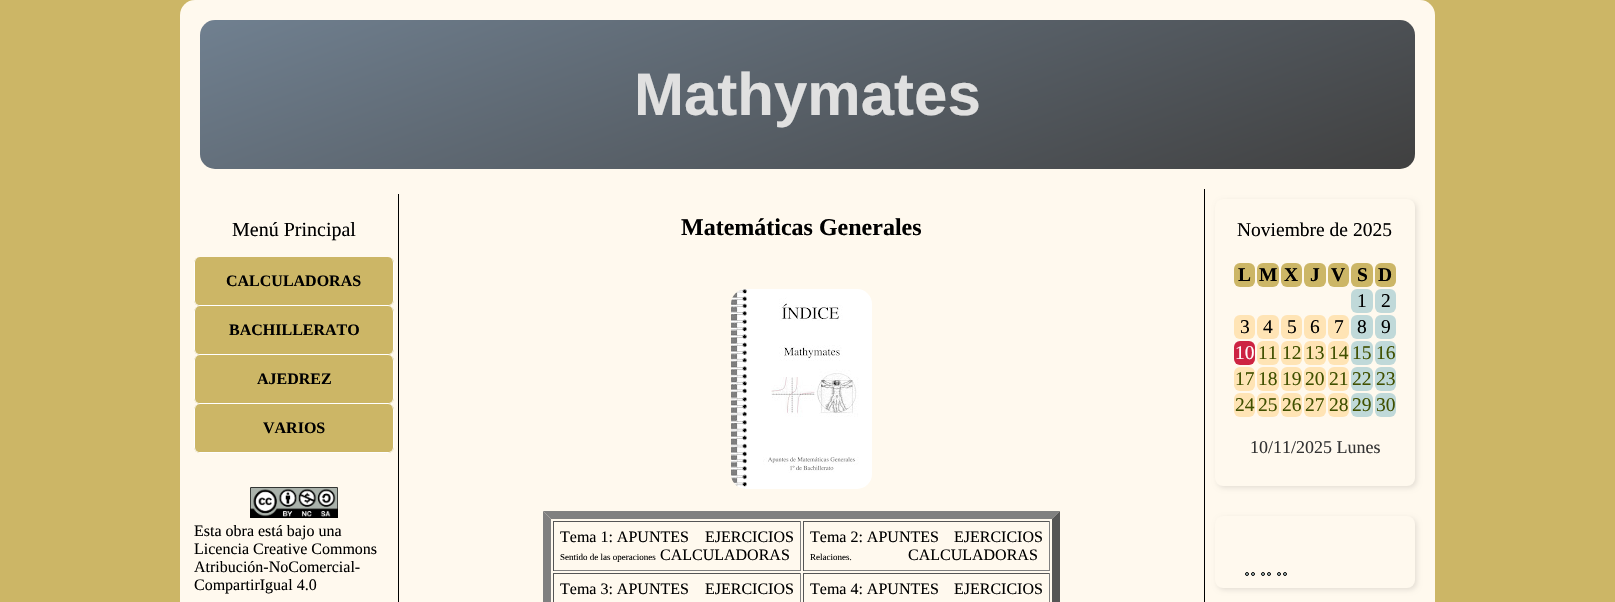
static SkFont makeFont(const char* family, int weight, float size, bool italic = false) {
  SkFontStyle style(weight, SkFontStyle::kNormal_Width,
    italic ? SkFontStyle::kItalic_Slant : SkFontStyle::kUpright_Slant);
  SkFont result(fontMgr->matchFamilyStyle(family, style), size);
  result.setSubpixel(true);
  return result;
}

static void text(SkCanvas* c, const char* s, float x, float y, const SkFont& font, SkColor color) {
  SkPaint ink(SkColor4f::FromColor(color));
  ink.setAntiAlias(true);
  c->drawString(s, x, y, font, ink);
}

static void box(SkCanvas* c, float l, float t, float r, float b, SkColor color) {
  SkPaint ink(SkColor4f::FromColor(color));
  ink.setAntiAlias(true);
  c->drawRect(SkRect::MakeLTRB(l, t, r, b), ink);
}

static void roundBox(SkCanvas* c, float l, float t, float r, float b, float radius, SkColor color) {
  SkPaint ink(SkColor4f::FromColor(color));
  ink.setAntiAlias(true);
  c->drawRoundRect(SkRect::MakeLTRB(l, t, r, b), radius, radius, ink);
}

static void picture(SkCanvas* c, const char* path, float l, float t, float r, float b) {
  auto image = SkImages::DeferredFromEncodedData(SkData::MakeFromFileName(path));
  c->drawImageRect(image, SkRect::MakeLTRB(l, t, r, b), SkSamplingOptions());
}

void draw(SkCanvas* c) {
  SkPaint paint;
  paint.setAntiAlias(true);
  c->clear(0xffccb666);
  roundBox(c, 180, 0, 1435, 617, 15, 0xfffff9ee);
  {
    const SkColor colors[] = {0xff708090, 0xff404040};
    const float stops[] = {0, 1};
    const SkPoint ends[] = {{712, -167}, {903, 356}};
    paint.setShader(SkGradientShader::MakeLinear(ends, colors, stops, 2, SkTileMode::kClamp));
    paint.setAlpha(255);
  }
  c->drawRoundRect(SkRect::MakeLTRB(200, 20, 1415, 169), 15, 15, paint);
  SkFont face1 = makeFont("Liberation Sans", 700, 60);
  text(c, "Mathymates", 634, 115, face1, 0xffe0e0e0);
  box(c, 398, 194, 399, 602, 0xff000000);
  SkFont face2 = makeFont("Liberation Serif", 400, 20);
  text(c, "Menú Principal", 232, 236, face2, 0xff000000);
  roundBox(c, 194, 257, 394, 306, 6, 0xffccb666);
  paint.setShader(nullptr);
  paint.setColor(0xffffffff);
  c->drawPath(SkPathBuilder(SkPathFillType::kEvenOdd).moveTo(200, 257).lineTo(388, 257).cubicTo(391, 257, 394, 260, 394, 263).lineTo(394, 300).cubicTo(394, 303, 391, 306, 388, 306).lineTo(200, 306).cubicTo(197, 306, 194, 303, 194, 300).lineTo(194, 263).cubicTo(194, 260, 197, 257, 200, 257).close().moveTo(200, 257).lineTo(388, 257).cubicTo(391, 257, 393, 260, 393, 263).lineTo(393, 300).cubicTo(393, 303, 391, 305, 388, 305).lineTo(200, 305).cubicTo(197, 305, 195, 303, 195, 300).lineTo(195, 263).cubicTo(195, 260, 197, 257, 200, 257).close().detach(), paint);
  SkFont face3 = makeFont("Liberation Serif", 700, 16);
  text(c, "CALCULADORAS", 226, 286, face3, 0xff000000);
  roundBox(c, 194, 306, 394, 355, 6, 0xffccb666);
  c->drawPath(SkPathBuilder(SkPathFillType::kEvenOdd).moveTo(200, 306).lineTo(388, 306).cubicTo(391, 306, 394, 309, 394, 312).lineTo(394, 349).cubicTo(394, 352, 391, 355, 388, 355).lineTo(200, 355).cubicTo(197, 355, 194, 352, 194, 349).lineTo(194, 312).cubicTo(194, 309, 197, 306, 200, 306).close().moveTo(200, 306).lineTo(388, 306).cubicTo(391, 306, 393, 309, 393, 312).lineTo(393, 349).cubicTo(393, 352, 391, 354, 388, 354).lineTo(200, 354).cubicTo(197, 354, 195, 352, 195, 349).lineTo(195, 312).cubicTo(195, 309, 197, 306, 200, 306).close().detach(), paint);
  text(c, "BACHILLERATO", 229, 335, face3, 0xff000000);
  roundBox(c, 194, 355, 394, 404, 6, 0xffccb666);
  c->drawPath(SkPathBuilder(SkPathFillType::kEvenOdd).moveTo(200, 355).lineTo(388, 355).cubicTo(391, 355, 394, 358, 394, 361).lineTo(394, 398).cubicTo(394, 401, 391, 404, 388, 404).lineTo(200, 404).cubicTo(197, 404, 194, 401, 194, 398).lineTo(194, 361).cubicTo(194, 358, 197, 355, 200, 355).close().moveTo(200, 355).lineTo(388, 355).cubicTo(391, 355, 393, 358, 393, 361).lineTo(393, 398).cubicTo(393, 401, 391, 403, 388, 403).lineTo(200, 403).cubicTo(197, 403, 195, 401, 195, 398).lineTo(195, 361).cubicTo(195, 358, 197, 355, 200, 355).close().detach(), paint);
  text(c, "AJEDREZ", 257, 384, face3, 0xff000000);
  roundBox(c, 194, 404, 394, 453, 6, 0xffccb666);
  c->drawPath(SkPathBuilder(SkPathFillType::kEvenOdd).moveTo(200, 404).lineTo(388, 404).cubicTo(391, 404, 394, 407, 394, 410).lineTo(394, 447).cubicTo(394, 450, 391, 453, 388, 453).lineTo(200, 453).cubicTo(197, 453, 194, 450, 194, 447).lineTo(194, 410).cubicTo(194, 407, 197, 404, 200, 404).close().moveTo(200, 404).lineTo(388, 404).cubicTo(391, 404, 393, 407, 393, 410).lineTo(393, 447).cubicTo(393, 450, 391, 452, 388, 452).lineTo(200, 452).cubicTo(197, 452, 195, 450, 195, 447).lineTo(195, 410).cubicTo(195, 407, 197, 404, 200, 404).close().detach(), paint);
  text(c, "VARIOS", 263, 433, face3, 0xff000000);
  picture(c, "img_01.png", 250, 487, 338, 518);
  SkFont face4 = makeFont("Liberation Serif", 400, 16);
  text(c, "Esta obra está bajo una", 194, 536, face4, 0xff000000);
  text(c, "Licencia Creative Commons", 194, 554, face4, 0xff000000);
  text(c, "Atribución-NoComercial-", 194, 572, face4, 0xff000000);
  text(c, "CompartirIgual 4.0", 194, 590, face4, 0xff000000);
  SkFont face5 = makeFont("Liberation Serif", 700, 24);
  text(c, "Matemáticas Generales", 681, 235, face5, 0xff000000);
  picture(c, "img_02.png", 731, 289, 872, 489);
  paint.setColor(0xff808080);
  c->drawPath(SkPathBuilder().moveTo(543, 511).lineTo(1060, 511).lineTo(1052, 519).lineTo(551, 519).close().detach(), paint);
  paint.setColor(0xff555555);
  c->drawPath(SkPathBuilder().moveTo(1060, 511).lineTo(1060, 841).lineTo(1052, 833).lineTo(1052, 519).close().detach(), paint);
  paint.setColor(0xff808080);
  c->drawPath(SkPathBuilder().moveTo(543, 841).lineTo(543, 511).lineTo(551, 519).lineTo(551, 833).close().detach(), paint);
  box(c, 553, 521, 801, 522, 0xff555555);
  box(c, 800, 521, 801, 571, 0xff808080);
  box(c, 553, 570, 801, 571, 0xff808080);
  box(c, 553, 521, 554, 571, 0xff555555);
  text(c, "Tema 1: APUNTES", 560, 542, face4, 0xff000000);
  text(c, "EJERCICIOS", 705, 542, face4, 0xff000000);
  SkFont face6 = makeFont("Liberation Serif", 400, 9);
  text(c, "Sentido de las operaciones", 560, 560, face6, 0xff000000);
  text(c, "CALCULADORAS", 660, 560, face4, 0xff000000);
  box(c, 803, 521, 1050, 522, 0xff555555);
  box(c, 1049, 521, 1050, 571, 0xff808080);
  box(c, 803, 570, 1050, 571, 0xff808080);
  box(c, 803, 521, 804, 571, 0xff555555);
  text(c, "Tema 2: APUNTES", 810, 542, face4, 0xff000000);
  text(c, "EJERCICIOS", 954, 542, face4, 0xff000000);
  text(c, "Relaciones.", 810, 560, face6, 0xff000000);
  text(c, "CALCULADORAS", 908, 560, face4, 0xff000000);
  box(c, 553, 573, 801, 574, 0xff555555);
  box(c, 800, 573, 801, 602, 0xff808080);
  box(c, 553, 573, 554, 602, 0xff555555);
  text(c, "Tema 3: APUNTES", 560, 594, face4, 0xff000000);
  text(c, "EJERCICIOS", 705, 594, face4, 0xff000000);
  box(c, 803, 573, 1050, 574, 0xff555555);
  box(c, 1049, 573, 1050, 602, 0xff808080);
  box(c, 803, 573, 804, 602, 0xff555555);
  text(c, "Tema 4: APUNTES", 810, 594, face4, 0xff000000);
  text(c, "EJERCICIOS", 954, 594, face4, 0xff000000);
  box(c, 1204, 189, 1205, 602, 0xff000000);
  paint.setColor(0x1a000000);
  paint.setMaskFilter(SkMaskFilter::MakeBlur(kNormal_SkBlurStyle, 2.5f));
  c->drawRoundRect(SkRect::MakeLTRB(1217, 201, 1417, 488), 8, 8, paint);
  paint.setMaskFilter(nullptr);
  roundBox(c, 1215, 199, 1415, 486, 8, 0xfffff9ee);
  SkFont face7 = makeFont("Liberation Serif", 400, 19.5f);
  text(c, "Noviembre de 2025", 1237, 236, face7, 0xff000000);
  roundBox(c, 1234, 263, 1255, 287, 6, 0xffccb666);
  SkFont face8 = makeFont("Liberation Serif", 700, 19.5f);
  text(c, "L", 1238, 281, face8, 0xff000000);
  roundBox(c, 1257, 263, 1279, 287, 6, 0xffccb666);
  text(c, "M", 1259, 281, face8, 0xff000000);
  roundBox(c, 1281, 263, 1302, 287, 6, 0xffccb666);
  text(c, "X", 1284, 281, face8, 0xff000000);
  roundBox(c, 1304, 263, 1326, 287, 6, 0xffccb666);
  text(c, "J", 1310, 281, face8, 0xff000000);
  roundBox(c, 1328, 263, 1349, 287, 6, 0xffccb666);
  text(c, "V", 1331, 281, face8, 0xff000000);
  roundBox(c, 1351, 263, 1373, 287, 6, 0xffccb666);
  text(c, "S", 1357, 281, face8, 0xff000000);
  roundBox(c, 1375, 263, 1396, 287, 6, 0xffccb666);
  text(c, "D", 1378, 281, face8, 0xff000000);
  roundBox(c, 1351, 289, 1373, 313, 6, 0xffc0d9d9);
  text(c, "1", 1357, 307, face7, 0xff000000);
  roundBox(c, 1375, 289, 1396, 313, 6, 0xffc0d9d9);
  text(c, "2", 1381, 307, face7, 0xff000000);
  roundBox(c, 1234, 315, 1255, 339, 6, 0xffffe4b5);
  text(c, "3", 1240, 333, face7, 0xff000000);
  roundBox(c, 1257, 315, 1279, 339, 6, 0xffffe4b5);
  text(c, "4", 1263, 333, face7, 0xff000000);
  roundBox(c, 1281, 315, 1302, 339, 6, 0xffffe4b5);
  text(c, "5", 1287, 333, face7, 0xff000000);
  roundBox(c, 1304, 315, 1326, 339, 6, 0xffffe4b5);
  text(c, "6", 1310, 333, face7, 0xff000000);
  roundBox(c, 1328, 315, 1349, 339, 6, 0xffffe4b5);
  text(c, "7", 1334, 333, face7, 0xff000000);
  roundBox(c, 1351, 315, 1373, 339, 6, 0xffc0d9d9);
  text(c, "8", 1357, 333, face7, 0xff000000);
  roundBox(c, 1375, 315, 1396, 339, 6, 0xffc0d9d9);
  text(c, "9", 1381, 333, face7, 0xff000000);
  roundBox(c, 1234, 341, 1255, 365, 6, 0xffcd2342);
  text(c, "10", 1235, 359, face7, 0xffffffff);
  roundBox(c, 1257, 341, 1279, 365, 6, 0xffffe4b5);
  text(c, "11", 1258, 359, face7, 0xff405000);
  roundBox(c, 1281, 341, 1302, 365, 6, 0xffffe4b5);
  text(c, "12", 1282, 359, face7, 0xff405000);
  roundBox(c, 1304, 341, 1326, 365, 6, 0xffffe4b5);
  text(c, "13", 1305, 359, face7, 0xff405000);
  roundBox(c, 1328, 341, 1349, 365, 6, 0xffffe4b5);
  text(c, "14", 1329, 359, face7, 0xff405000);
  roundBox(c, 1351, 341, 1373, 365, 6, 0xffc0d9d9);
  text(c, "15", 1352, 359, face7, 0xff405000);
  roundBox(c, 1375, 341, 1396, 365, 6, 0xffc0d9d9);
  text(c, "16", 1376, 359, face7, 0xff405000);
  roundBox(c, 1234, 367, 1255, 391, 6, 0xffffe4b5);
  text(c, "17", 1235, 385, face7, 0xff405000);
  roundBox(c, 1257, 367, 1279, 391, 6, 0xffffe4b5);
  text(c, "18", 1258, 385, face7, 0xff405000);
  roundBox(c, 1281, 367, 1302, 391, 6, 0xffffe4b5);
  text(c, "19", 1282, 385, face7, 0xff405000);
  roundBox(c, 1304, 367, 1326, 391, 6, 0xffffe4b5);
  text(c, "20", 1305, 385, face7, 0xff405000);
  roundBox(c, 1328, 367, 1349, 391, 6, 0xffffe4b5);
  text(c, "21", 1329, 385, face7, 0xff405000);
  roundBox(c, 1351, 367, 1373, 391, 6, 0xffc0d9d9);
  text(c, "22", 1352, 385, face7, 0xff405000);
  roundBox(c, 1375, 367, 1396, 391, 6, 0xffc0d9d9);
  text(c, "23", 1376, 385, face7, 0xff405000);
  roundBox(c, 1234, 393, 1255, 417, 6, 0xffffe4b5);
  text(c, "24", 1235, 411, face7, 0xff405000);
  roundBox(c, 1257, 393, 1279, 417, 6, 0xffffe4b5);
  text(c, "25", 1258, 411, face7, 0xff405000);
  roundBox(c, 1281, 393, 1302, 417, 6, 0xffffe4b5);
  text(c, "26", 1282, 411, face7, 0xff405000);
  roundBox(c, 1304, 393, 1326, 417, 6, 0xffffe4b5);
  text(c, "27", 1305, 411, face7, 0xff405000);
  roundBox(c, 1328, 393, 1349, 417, 6, 0xffffe4b5);
  text(c, "28", 1329, 411, face7, 0xff405000);
  roundBox(c, 1351, 393, 1373, 417, 6, 0xffc0d9d9);
  text(c, "29", 1352, 411, face7, 0xff405000);
  roundBox(c, 1375, 393, 1396, 417, 6, 0xffc0d9d9);
  text(c, "30", 1376, 411, face7, 0xff405000);
  SkFont face9 = makeFont("Liberation Serif", 400, 18);
  text(c, "10/11/2025 Lunes", 1250, 453, face9, 0xff333333);
  paint.setMaskFilter(SkMaskFilter::MakeBlur(kNormal_SkBlurStyle, 2.5f));
  c->drawRoundRect(SkRect::MakeLTRB(1217, 518, 1417, 590), 8, 8, paint);
  paint.setMaskFilter(nullptr);
  roundBox(c, 1215, 516, 1415, 588, 8, 0xfffff9ee);
  paint.setColor(0xffc0d9d9);
  c->drawCircle(1247, 574, 1.5f, paint);
  paint.setStyle(SkPaint::kStroke_Style);
  paint.setStrokeWidth(1);
  paint.setColor(0xff000000);
  c->drawCircle(1247, 574, 1.5f, paint);
  paint.setStyle(SkPaint::kFill_Style);
  paint.setColor(0xffc0d9d9);
  c->drawCircle(1253, 574, 1.5f, paint);
  paint.setStyle(SkPaint::kStroke_Style);
  paint.setColor(0xff000000);
  c->drawCircle(1253, 574, 1.5f, paint);
  paint.setStyle(SkPaint::kFill_Style);
  paint.setColor(0xffc0d9d9);
  c->drawCircle(1263, 574, 1.5f, paint);
  paint.setStyle(SkPaint::kStroke_Style);
  paint.setColor(0xff000000);
  c->drawCircle(1263, 574, 1.5f, paint);
  paint.setStyle(SkPaint::kFill_Style);
  paint.setColor(0xffc0d9d9);
  c->drawCircle(1269, 574, 1.5f, paint);
  paint.setStyle(SkPaint::kStroke_Style);
  paint.setColor(0xff000000);
  c->drawCircle(1269, 574, 1.5f, paint);
  paint.setStyle(SkPaint::kFill_Style);
  paint.setColor(0xffc0d9d9);
  c->drawCircle(1279, 574, 1.5f, paint);
  paint.setStyle(SkPaint::kStroke_Style);
  paint.setColor(0xff000000);
  c->drawCircle(1279, 574, 1.5f, paint);
  paint.setStyle(SkPaint::kFill_Style);
  paint.setColor(0xffc0d9d9);
  c->drawCircle(1285, 574, 1.5f, paint);
  paint.setStyle(SkPaint::kStroke_Style);
  paint.setColor(0xff000000);
  c->drawCircle(1285, 574, 1.5f, paint);
}
